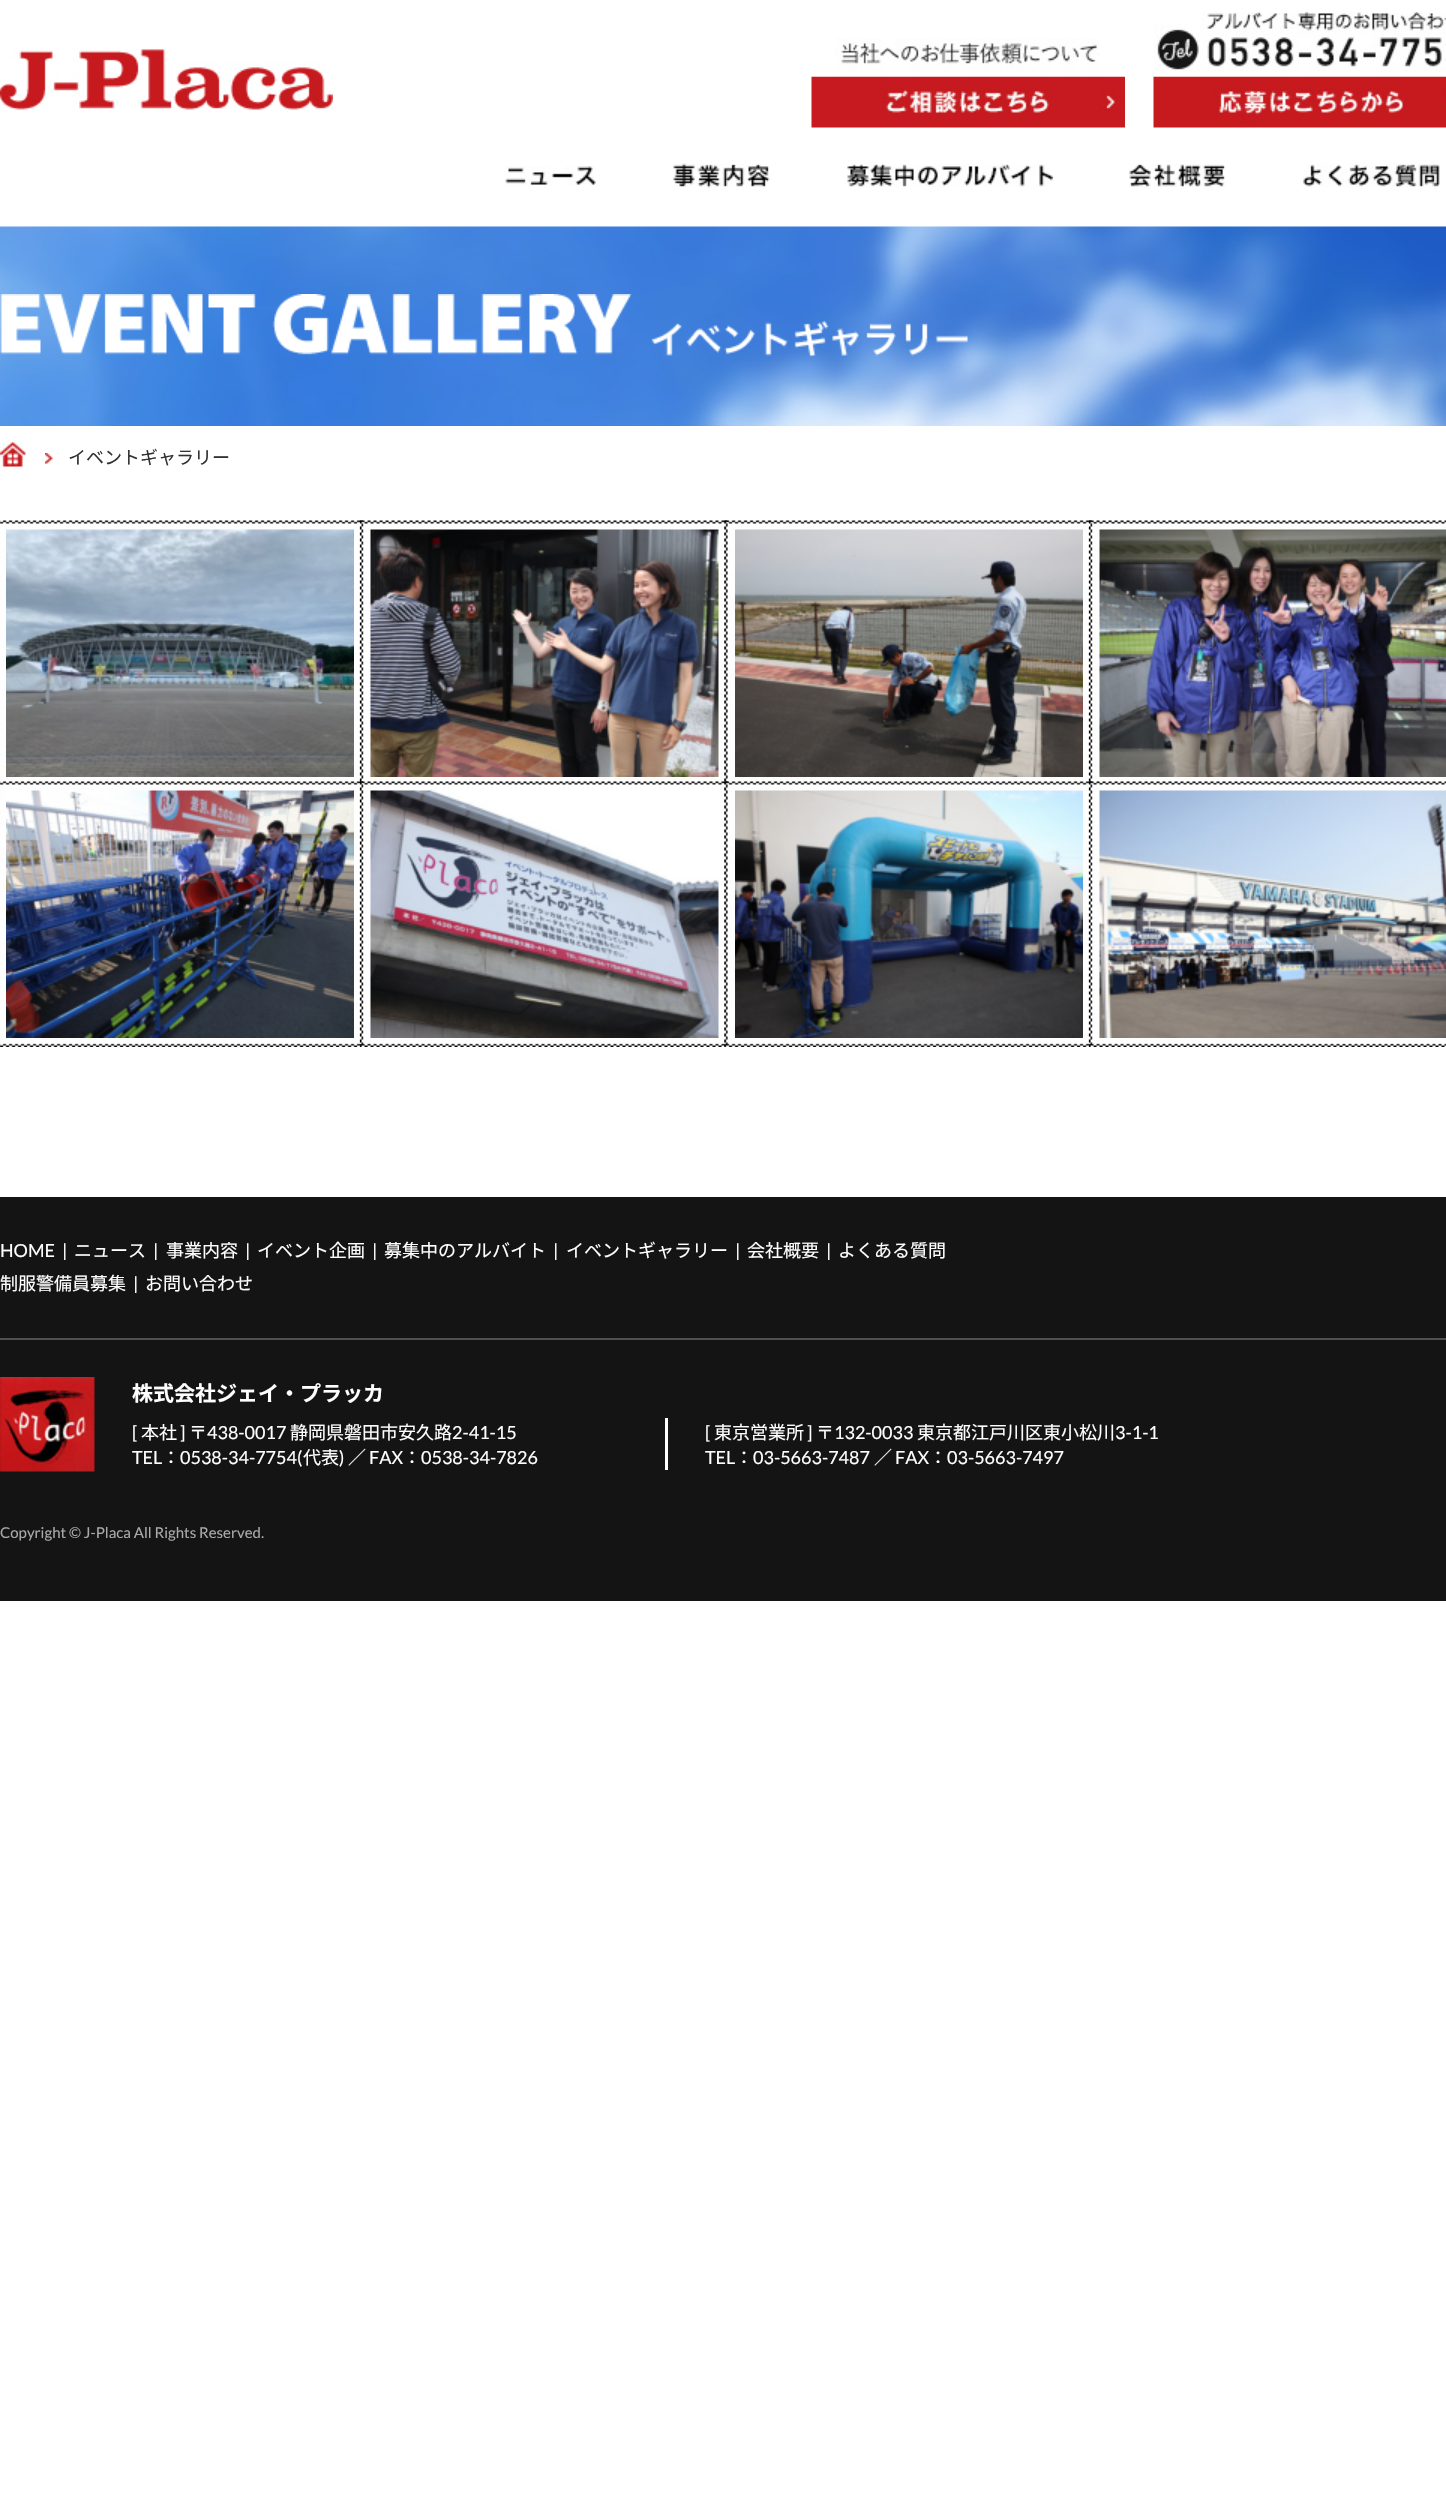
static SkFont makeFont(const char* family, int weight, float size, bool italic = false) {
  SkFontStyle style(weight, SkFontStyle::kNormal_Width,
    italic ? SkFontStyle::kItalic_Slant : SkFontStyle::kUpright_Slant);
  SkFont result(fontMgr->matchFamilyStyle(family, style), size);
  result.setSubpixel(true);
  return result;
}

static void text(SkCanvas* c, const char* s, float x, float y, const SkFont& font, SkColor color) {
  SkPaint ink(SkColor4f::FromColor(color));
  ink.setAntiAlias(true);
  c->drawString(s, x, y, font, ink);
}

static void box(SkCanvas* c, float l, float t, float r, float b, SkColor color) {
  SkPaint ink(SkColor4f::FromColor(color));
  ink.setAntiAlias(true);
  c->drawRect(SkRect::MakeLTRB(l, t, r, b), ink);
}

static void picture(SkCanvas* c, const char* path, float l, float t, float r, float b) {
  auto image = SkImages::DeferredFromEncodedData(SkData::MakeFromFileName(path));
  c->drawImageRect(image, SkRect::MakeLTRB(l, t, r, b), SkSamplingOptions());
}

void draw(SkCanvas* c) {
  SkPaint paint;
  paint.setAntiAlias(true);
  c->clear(0xffffffff);
  picture(c, "img_01.png", 0, 49, 333, 110);
  picture(c, "img_03.png", 811, 76, 1125, 128);
  picture(c, "img_02.png", 811, 38, 1125, 77);
  picture(c, "img_05.png", 1153, 76, 1446, 128);
  picture(c, "img_04.png", 1153, 12, 1446, 77);
  picture(c, "img_06.png", 505, 166, 596, 186);
  picture(c, "img_07.png", 673, 163, 770, 188);
  picture(c, "img_08.png", 847, 164, 1053, 187);
  picture(c, "img_09.png", 1129, 164, 1225, 188);
  picture(c, "img_10.png", 1303, 164, 1440, 187);
  picture(c, "img_11.png", 0, 226, 1446, 426);
  picture(c, "img_12.png", 0, 294, 968, 357);
  picture(c, "img_13.png", 0, 442, 26, 467);
  picture(c, "img_14.png", 45, 453, 53, 464);
  SkFont face1 = makeFont("Noto Sans JP", 400, 18);
  text(c, "イベントギャラリー", 68, 464, face1, 0xff323232);
  picture(c, "img_15.png", 0, 520, 363, 782);
  picture(c, "img_16.png", 6, 529, 354, 777);
  picture(c, "img_17.png", 360, 520, 728, 782);
  picture(c, "img_18.png", 370, 529, 719, 777);
  picture(c, "img_19.png", 724, 520, 1092, 782);
  picture(c, "img_20.png", 735, 529, 1083, 777);
  picture(c, "img_21.png", 1089, 520, 1446, 782);
  picture(c, "img_22.png", 1099, 529, 1446, 777);
  picture(c, "img_23.png", 0, 781, 363, 1047);
  picture(c, "img_24.png", 6, 790, 354, 1038);
  picture(c, "img_25.png", 360, 781, 728, 1047);
  picture(c, "img_26.png", 370, 790, 719, 1038);
  picture(c, "img_27.png", 724, 781, 1092, 1047);
  picture(c, "img_28.png", 735, 790, 1083, 1038);
  picture(c, "img_29.png", 1089, 781, 1446, 1047);
  picture(c, "img_30.png", 1099, 790, 1446, 1038);
  box(c, 0, 1197, 1446, 1601, 0xff141414);
  SkFont face2 = makeFont("Lato", 400, 18);
  text(c, "HOME", 0, 1257, face2, 0xffffffff);
  text(c, "|", 62, 1257, face2, 0xffffffff);
  text(c, "ニュース", 74, 1257, face1, 0xffffffff);
  text(c, "|", 153, 1257, face2, 0xffffffff);
  text(c, "事業内容", 166, 1257, face1, 0xffffffff);
  text(c, "|", 245, 1257, face2, 0xffffffff);
  text(c, "イベント企画", 257, 1257, face1, 0xffffffff);
  text(c, "|", 372, 1257, face2, 0xffffffff);
  text(c, "募集中のアルバイト", 384, 1257, face1, 0xffffffff);
  text(c, "|", 553, 1257, face2, 0xffffffff);
  text(c, "イベントギャラリー", 566, 1257, face1, 0xffffffff);
  text(c, "|", 735, 1257, face2, 0xffffffff);
  text(c, "会社概要", 747, 1257, face1, 0xffffffff);
  text(c, "|", 826, 1257, face2, 0xffffffff);
  text(c, "よくある質問", 838, 1257, face1, 0xffffffff);
  text(c, "制服警備員募集", 0, 1290, face1, 0xffffffff);
  text(c, "|", 133, 1290, face2, 0xffffffff);
  text(c, "お問い合わせ", 145, 1290, face1, 0xffffffff);
  box(c, 0, 1338, 1446, 1340, 0xff4f4f4f);
  picture(c, "img_31.png", 0, 1377, 95, 1472);
  SkFont face3 = makeFont("Noto Sans JP", 700, 21);
  text(c, "株式会社ジェイ・プラッカ", 132, 1401, face3, 0xffffffff);
  box(c, 665, 1418, 668, 1470, 0xffffffff);
  text(c, "[", 132, 1439, face2, 0xffffffff);
  text(c, "本社", 141, 1439, face1, 0xffffffff);
  text(c, "]", 180, 1439, face2, 0xffffffff);
  text(c, "〒", 189, 1439, face1, 0xffffffff);
  text(c, "438-0017", 207, 1439, face2, 0xffffffff);
  text(c, "静岡県磐田市安久路", 290, 1439, face1, 0xffffffff);
  text(c, "2-41-15", 452, 1439, face2, 0xffffffff);
  text(c, "TEL", 132, 1464, face2, 0xffffffff);
  text(c, "：", 162, 1464, face1, 0xffffffff);
  text(c, "0538-34-7754(", 180, 1464, face2, 0xffffffff);
  text(c, "代表", 303, 1464, face1, 0xffffffff);
  text(c, ")", 339, 1464, face2, 0xffffffff);
  text(c, "／", 348, 1464, face1, 0xffffffff);
  text(c, "FAX", 369, 1464, face2, 0xffffffff);
  text(c, "：", 403, 1464, face1, 0xffffffff);
  text(c, "0538-34-7826", 421, 1464, face2, 0xffffffff);
  text(c, "[", 705, 1439, face2, 0xffffffff);
  text(c, "東京営業所", 714, 1439, face1, 0xffffffff);
  text(c, "]", 807, 1439, face2, 0xffffffff);
  text(c, "〒", 816, 1439, face1, 0xffffffff);
  text(c, "132-0033", 834, 1439, face2, 0xffffffff);
  text(c, "東京都江戸川区東小松川", 917, 1439, face1, 0xffffffff);
  text(c, "3-1-1", 1115, 1439, face2, 0xffffffff);
  text(c, "TEL", 705, 1464, face2, 0xffffffff);
  text(c, "：", 735, 1464, face1, 0xffffffff);
  text(c, "03-5663-7487", 753, 1464, face2, 0xffffffff);
  text(c, "／", 874, 1464, face1, 0xffffffff);
  text(c, "FAX", 895, 1464, face2, 0xffffffff);
  text(c, "：", 929, 1464, face1, 0xffffffff);
  text(c, "03-5663-7497", 947, 1464, face2, 0xffffffff);
  SkFont face4 = makeFont("Lato", 400, 15);
  text(c, "Copyright © J-Placa All Rights Reserved.", 0, 1538, face4, 0xffaaaaaa);
}
